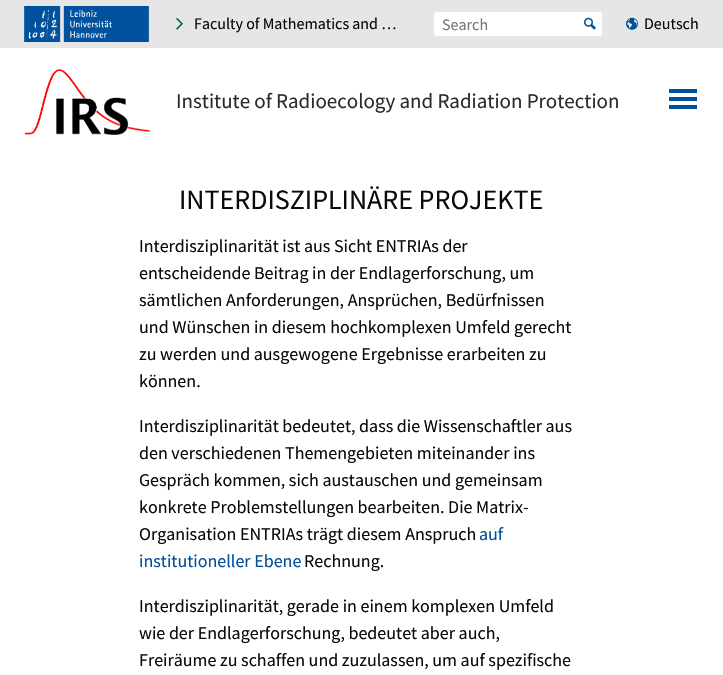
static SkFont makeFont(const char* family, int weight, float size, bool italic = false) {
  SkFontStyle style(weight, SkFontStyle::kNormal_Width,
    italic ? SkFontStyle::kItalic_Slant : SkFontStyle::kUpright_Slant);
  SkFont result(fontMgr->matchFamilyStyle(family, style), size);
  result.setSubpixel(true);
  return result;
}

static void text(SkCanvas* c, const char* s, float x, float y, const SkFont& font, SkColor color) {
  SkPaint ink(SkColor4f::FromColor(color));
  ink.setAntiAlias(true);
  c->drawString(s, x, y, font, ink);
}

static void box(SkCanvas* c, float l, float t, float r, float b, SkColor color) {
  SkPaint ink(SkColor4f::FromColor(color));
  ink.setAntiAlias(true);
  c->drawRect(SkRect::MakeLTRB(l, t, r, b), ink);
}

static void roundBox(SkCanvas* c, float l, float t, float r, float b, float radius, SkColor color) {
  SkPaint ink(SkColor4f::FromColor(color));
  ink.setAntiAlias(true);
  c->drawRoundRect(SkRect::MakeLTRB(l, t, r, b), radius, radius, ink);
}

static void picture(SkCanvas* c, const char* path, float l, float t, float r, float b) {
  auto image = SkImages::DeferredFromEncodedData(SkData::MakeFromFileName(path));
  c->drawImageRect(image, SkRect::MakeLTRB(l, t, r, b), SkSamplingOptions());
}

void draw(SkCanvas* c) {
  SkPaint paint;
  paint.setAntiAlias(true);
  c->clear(0xffffffff);
  box(c, 0, 0, 723, 48, 0xffe6e6e6);
  picture(c, "img_01.png", 24, 6, 149, 42);
  picture(c, "img_02.png", 176, 17, 183, 30);
  SkFont face1 = makeFont("Source Sans Pro", 400, 16);
  text(c, "Faculty of Mathematics and …", 194, 29, face1, 0xff0a0a0a);
  roundBox(c, 434, 12, 602, 36, 2, 0xffffffff);
  text(c, "Search", 442, 30, face1, 0xff777777);
  paint.setColor(0xffffffff);
  c->drawPath(SkPathBuilder().moveTo(578, 12).lineTo(600, 12).cubicTo(601, 12, 602, 13, 602, 14).lineTo(602, 34).cubicTo(602, 35, 601, 36, 600, 36).lineTo(578, 36).close().detach(), paint);
  picture(c, "img_03.png", 584, 17, 596, 30);
  picture(c, "img_04.png", 626, 17, 638, 30);
  text(c, "Deutsch", 644, 29, face1, 0xff0a0a0a);
  picture(c, "img_05.png", 24, 69, 150, 135);
  SkFont face2 = makeFont("Source Sans Pro", 400, 21);
  text(c, "Institute of Radioecology and Radiation Protection", 176, 108, face2, 0xff2b2b2b);
  picture(c, "img_06.png", 669, 89, 697, 109);
  SkFont face3 = makeFont("Source Sans Pro", 400, 28);
  text(c, "INTERDISZIPLINÄRE PROJEKTE", 179, 209, face3, 0xff0a0a0a);
  SkFont face4 = makeFont("Source Sans Pro", 400, 18);
  text(c, "Interdisziplinarität ist aus Sicht ENTRIAs der", 139, 252, face4, 0xff0a0a0a);
  text(c, "entscheidende Beitrag in der Endlagerforschung, um", 139, 279, face4, 0xff0a0a0a);
  text(c, "sämtlichen Anforderungen, Ansprüchen, Bedürfnissen", 139, 306, face4, 0xff0a0a0a);
  text(c, "und Wünschen in diesem hochkomplexen Umfeld gerecht", 139, 333, face4, 0xff0a0a0a);
  text(c, "zu werden und ausgewogene Ergebnisse erarbeiten zu", 139, 360, face4, 0xff0a0a0a);
  text(c, "können.", 139, 387, face4, 0xff0a0a0a);
  text(c, "Interdisziplinarität bedeutet, dass die Wissenschaftler aus", 139, 432, face4, 0xff0a0a0a);
  text(c, "den verschiedenen Themengebieten miteinander ins", 139, 459, face4, 0xff0a0a0a);
  text(c, "Gespräch kommen, sich austauschen und gemeinsam", 139, 486, face4, 0xff0a0a0a);
  text(c, "konkrete Problemstellungen bearbeiten. Die Matrix-", 139, 513, face4, 0xff0a0a0a);
  text(c, "Organisation ENTRIAs trägt diesem Anspruch", 139, 540, face4, 0xff0a0a0a);
  text(c, "auf", 479, 540, face4, 0xff00509b);
  text(c, "institutioneller Ebene", 139, 567, face4, 0xff00509b);
  text(c, "Rechnung.", 304, 567, face4, 0xff0a0a0a);
  text(c, "Interdisziplinarität, gerade in einem komplexen Umfeld", 139, 612, face4, 0xff0a0a0a);
  text(c, "wie der Endlagerforschung, bedeutet aber auch,", 139, 639, face4, 0xff0a0a0a);
  text(c, "Freiräume zu schaffen und zuzulassen, um auf spezifische", 139, 666, face4, 0xff0a0a0a);
}
